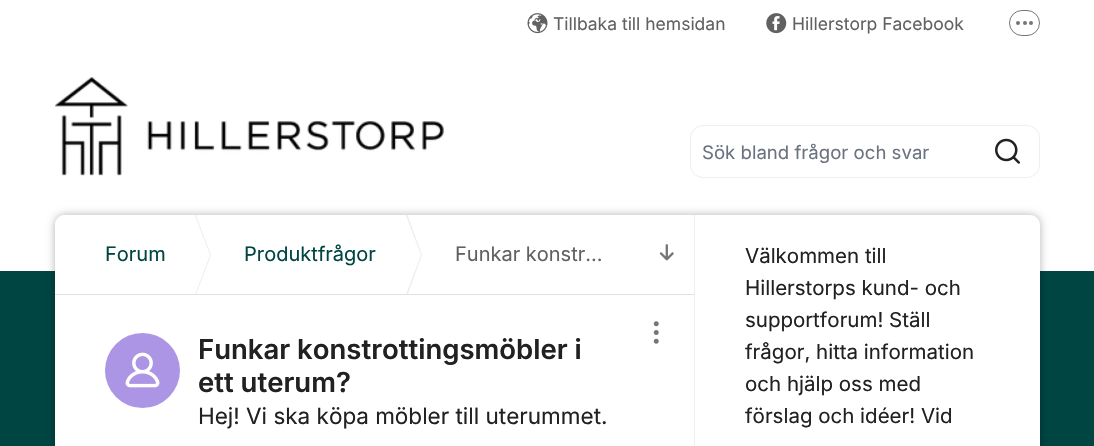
static SkFont makeFont(const char* family, int weight, float size, bool italic = false) {
  SkFontStyle style(weight, SkFontStyle::kNormal_Width,
    italic ? SkFontStyle::kItalic_Slant : SkFontStyle::kUpright_Slant);
  SkFont result(fontMgr->matchFamilyStyle(family, style), size);
  result.setSubpixel(true);
  return result;
}

static void text(SkCanvas* c, const char* s, float x, float y, const SkFont& font, SkColor color) {
  SkPaint ink(SkColor4f::FromColor(color));
  ink.setAntiAlias(true);
  c->drawString(s, x, y, font, ink);
}

static void box(SkCanvas* c, float l, float t, float r, float b, SkColor color) {
  SkPaint ink(SkColor4f::FromColor(color));
  ink.setAntiAlias(true);
  c->drawRect(SkRect::MakeLTRB(l, t, r, b), ink);
}

static void roundBox(SkCanvas* c, float l, float t, float r, float b, float radius, SkColor color) {
  SkPaint ink(SkColor4f::FromColor(color));
  ink.setAntiAlias(true);
  c->drawRoundRect(SkRect::MakeLTRB(l, t, r, b), radius, radius, ink);
}

static void picture(SkCanvas* c, const char* path, float l, float t, float r, float b) {
  auto image = SkImages::DeferredFromEncodedData(SkData::MakeFromFileName(path));
  c->drawImageRect(image, SkRect::MakeLTRB(l, t, r, b), SkSamplingOptions());
}

void draw(SkCanvas* c) {
  SkPaint paint;
  paint.setAntiAlias(true);
  c->clear(0xffffffff);
  picture(c, "img_01.png", 527, 13, 548, 34);
  SkFont face1 = makeFont("Inter", 400, 17.5f);
  text(c, "Tillbaka till hemsidan", 553, 30, face1, 0xff616161);
  picture(c, "img_02.png", 766, 13, 787, 34);
  text(c, "Hillerstorp Facebook", 792, 30, face1, 0xff616161);
  paint.setStyle(SkPaint::kStroke_Style);
  paint.setStrokeWidth(1);
  paint.setColor(0xff757575);
  c->drawRoundRect(SkRect::MakeLTRB(1009.5f, 10.5f, 1039.5f, 35.5f), 12.5f, 12.5f, paint);
  paint.setStyle(SkPaint::kFill_Style);
  c->drawCircle(1018, 23, 2, paint);
  c->drawCircle(1025, 23, 2, paint);
  c->drawCircle(1031, 23, 2, paint);
  picture(c, "img_03.png", 55, 77, 444, 176);
  paint.setStyle(SkPaint::kStroke_Style);
  paint.setColor(0xffeeeeee);
  c->drawRoundRect(SkRect::MakeLTRB(690.5f, 125.5f, 1039.5f, 177.5f), 12.5f, 12.5f, paint);
  SkFont face2 = makeFont("Inter", 400, 18.6f);
  text(c, "Sök bland frågor och svar", 702, 159, face2, 0xff6b7280);
  picture(c, "img_04.png", 995, 138, 1020, 164);
  box(c, 0, 271, 1094, 446, 0xff004542);
  paint.setStyle(SkPaint::kFill_Style);
  paint.setColor(0x4d000000);
  paint.setMaskFilter(SkMaskFilter::MakeBlur(kNormal_SkBlurStyle, 4));
  c->drawRoundRect(SkRect::MakeLTRB(55, 215, 1040, 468), 10, 10, paint);
  paint.setMaskFilter(nullptr);
  paint.setColor(0xffffffff);
  c->drawPath(SkPathBuilder().moveTo(65, 215).lineTo(1030, 215).cubicTo(1035.5f, 215, 1040, 219.5f, 1040, 225).lineTo(1040, 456).lineTo(55, 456).lineTo(55, 225).cubicTo(55, 219.5f, 59.5f, 215, 65, 215).close().detach(), paint);
  roundBox(c, 55, 215, 695, 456, 10, 0xffffffff);
  box(c, 55, 294, 695, 295, 0xffe0e0e0);
  c->save();
  c->clipRect(SkRect::MakeLTRB(55, 215, 695, 294));
  paint.setColor(0xffeeeeee);
  c->drawPath(SkPathBuilder().moveTo(192, 305).lineTo(192, 205).lineTo(211, 255).close().detach(), paint);
  paint.setColor(0xffffffff);
  c->drawPath(SkPathBuilder().moveTo(191, 305).lineTo(191, 205).lineTo(210, 255).close().detach(), paint);
  c->restore();
  SkFont face3 = makeFont("Inter", 400, 20);
  text(c, "Forum", 105, 261, face3, 0xff004542);
  c->save();
  c->clipRect(SkRect::MakeLTRB(55, 215, 695, 294));
  paint.setColor(0xffeeeeee);
  c->drawPath(SkPathBuilder().moveTo(404, 305).lineTo(404, 205).lineTo(422, 255).close().detach(), paint);
  paint.setColor(0xffffffff);
  c->drawPath(SkPathBuilder().moveTo(402, 305).lineTo(402, 205).lineTo(421, 255).close().detach(), paint);
  c->restore();
  text(c, "Produktfrågor", 244, 261, face3, 0xff004542);
  text(c, "Funkar konstr…", 455, 261, face3, 0xff616161);
  picture(c, "img_05.png", 659, 244, 674, 261);
  paint.setColor(0xffab95e4);
  c->drawCircle(142.5f, 370.5f, 37.5f, paint);
  picture(c, "img_06.png", 125, 352, 160, 388);
  SkFont face4 = makeFont("Inter", 600, 27.5f);
  text(c, "Funkar konstrottingsmöbler i", 198, 359, face4, 0xff212121);
  text(c, "ett uterum?", 198, 392, face4, 0xff212121);
  picture(c, "img_07.png", 653, 321, 659, 344);
  SkFont face5 = makeFont("Inter", 400, 22.5f);
  text(c, "Hej! Vi ska köpa möbler till uterummet.", 198, 424, face5, 0xff212121);
  box(c, 694, 215, 695, 446, 0xffeeeeee);
  SkFont face6 = makeFont("Inter", 400, 20.5f);
  text(c, "Välkommen till", 745, 263, face6, 0xff212121);
  text(c, "Hillerstorps kund- och", 745, 295, face6, 0xff212121);
  text(c, "supportforum! Ställ", 745, 327, face6, 0xff212121);
  text(c, "frågor, hitta information", 745, 359, face6, 0xff212121);
  text(c, "och hjälp oss med", 745, 391, face6, 0xff212121);
  text(c, "förslag och idéer! Vid", 745, 423, face6, 0xff212121);
}
